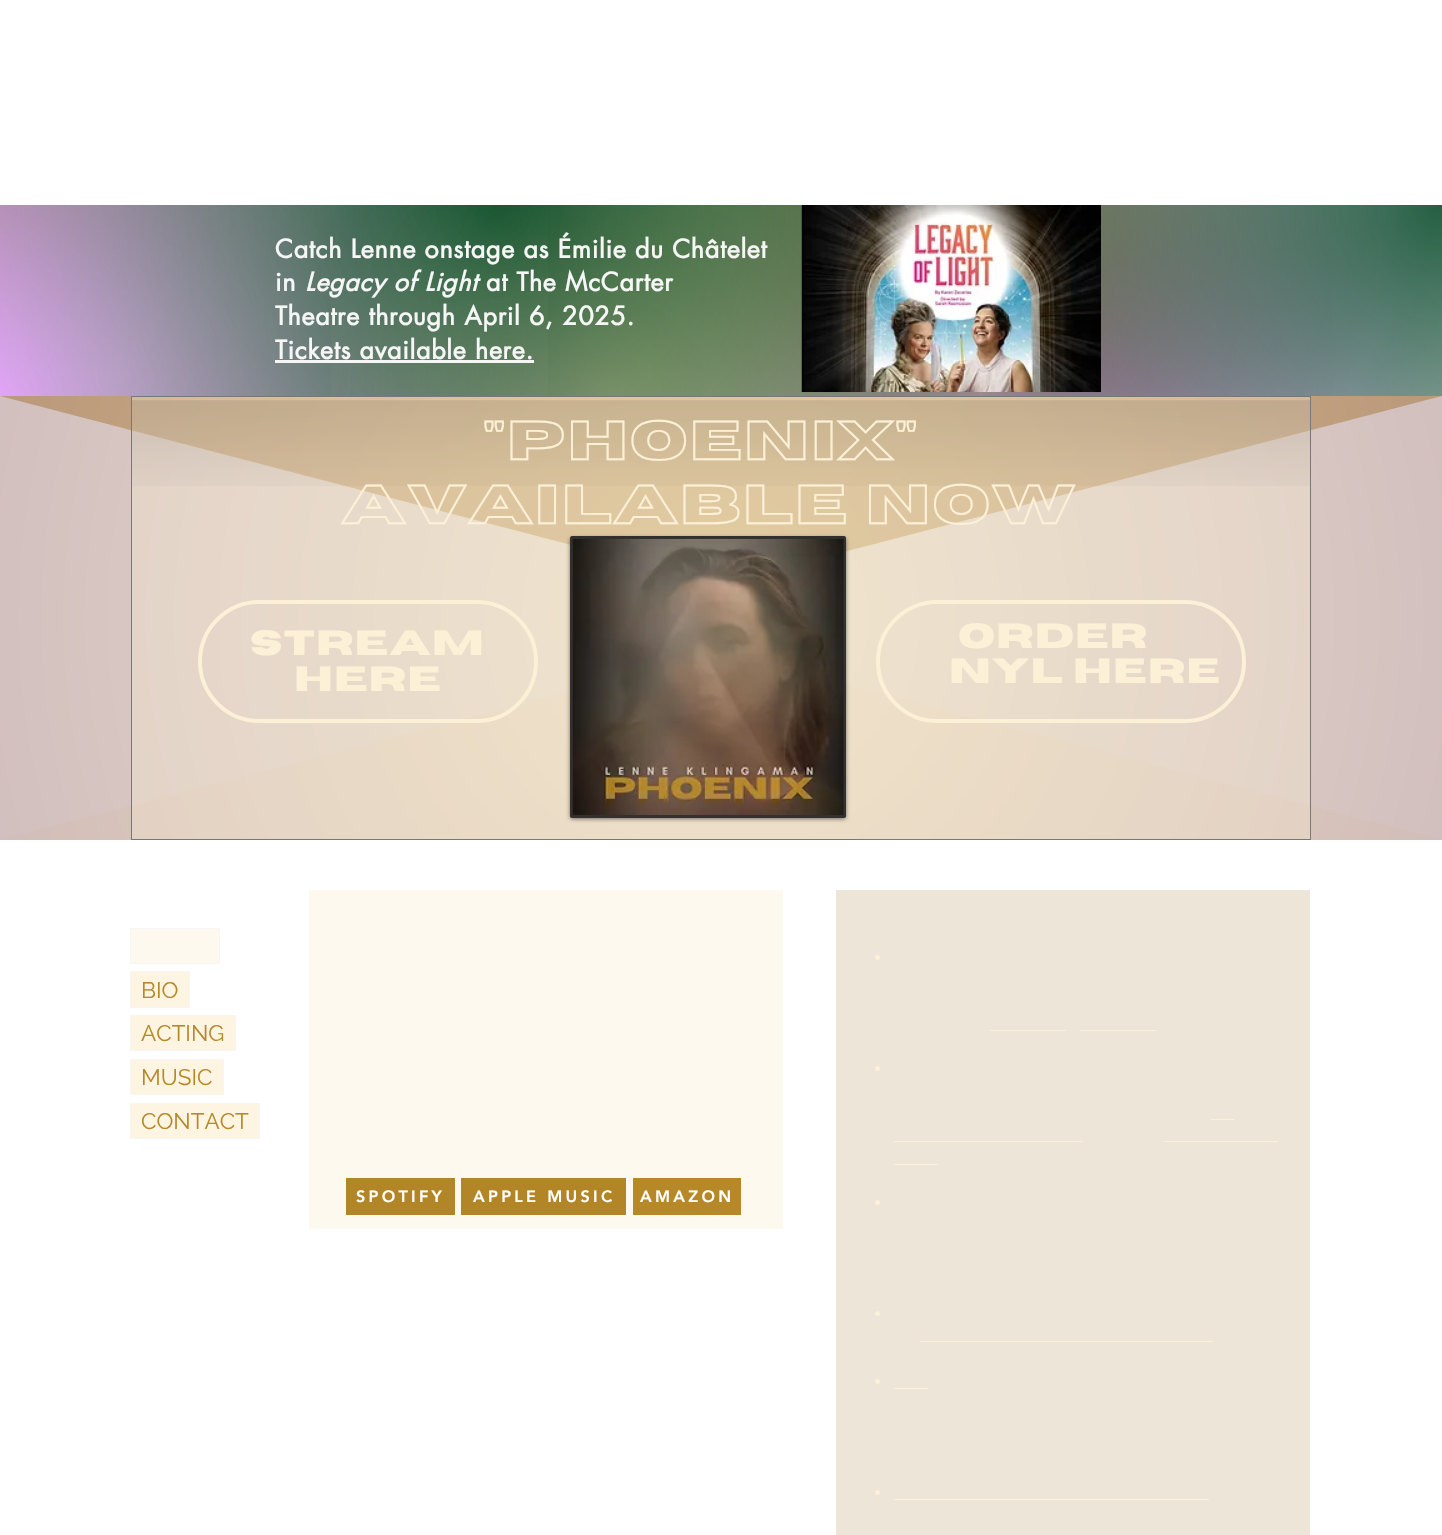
static SkFont makeFont(const char* family, int weight, float size, bool italic = false) {
  SkFontStyle style(weight, SkFontStyle::kNormal_Width,
    italic ? SkFontStyle::kItalic_Slant : SkFontStyle::kUpright_Slant);
  SkFont result(fontMgr->matchFamilyStyle(family, style), size);
  result.setSubpixel(true);
  return result;
}

static void text(SkCanvas* c, const char* s, float x, float y, const SkFont& font, SkColor color) {
  SkPaint ink(SkColor4f::FromColor(color));
  ink.setAntiAlias(true);
  c->drawString(s, x, y, font, ink);
}

static void spacedText(SkCanvas* c, const char* s, float x, float y, const SkFont& font, const SkPaint& ink, float letter, float word) {
  std::vector<SkGlyphID> glyphs(font.countText(s, strlen(s), SkTextEncoding::kUTF8));
  std::vector<float> xs(glyphs.size());
  font.textToGlyphs(s, strlen(s), SkTextEncoding::kUTF8, glyphs);
  font.getXPos(glyphs, xs, x);
  float extra = 0;
  for (size_t i = 0; i < glyphs.size(); i++) {
    xs[i] += extra;
    extra += letter + word * (glyphs[i] == font.unicharToGlyph(' '));
  }
  c->drawTextBlob(SkTextBlob::MakeFromPosHGlyphs(glyphs, xs, y, font), 0, 0, ink);
}

static void box(SkCanvas* c, float l, float t, float r, float b, SkColor color) {
  SkPaint ink(SkColor4f::FromColor(color));
  ink.setAntiAlias(true);
  c->drawRect(SkRect::MakeLTRB(l, t, r, b), ink);
}

static void roundBox(SkCanvas* c, float l, float t, float r, float b, float radius, SkColor color) {
  SkPaint ink(SkColor4f::FromColor(color));
  ink.setAntiAlias(true);
  c->drawRoundRect(SkRect::MakeLTRB(l, t, r, b), radius, radius, ink);
}

static void picture(SkCanvas* c, const char* path, float l, float t, float r, float b) {
  auto image = SkImages::DeferredFromEncodedData(SkData::MakeFromFileName(path));
  c->drawImageRect(image, SkRect::MakeLTRB(l, t, r, b), SkSamplingOptions());
}

void draw(SkCanvas* c) {
  SkPaint paint;
  paint.setAntiAlias(true);
  c->clear(0xffffffff);
  {
    const SkColor colors[] = {0xffefeff4, 0xffffffff};
    const float stops[] = {0, 1};
    paint.setShader(SkGradientShader::MakeRadial({705, 300}, 743, colors, stops, 2, SkTileMode::kClamp));
    paint.setAlpha(255);
  }
  c->drawRect(SkRect::MakeLTRB(77, 205, 1333, 396), paint);
  {
    const SkColor colors[] = {0xff4d6001, 0x004d6001};
    const float stops[] = {0, 0.7f};
    paint.setShader(SkGradientShader::MakeRadial({0, 205}, 1455, colors, stops, 2, SkTileMode::kClamp));
    paint.setAlpha(255);
  }
  c->drawRect(SkRect::MakeLTRB(0, 205, 979, 396), paint);
  {
    const SkColor colors[] = {0xffdb8ef6, 0x00db8ef6};
    const float stops[] = {0, 0.5f};
    paint.setShader(SkGradientShader::MakeRadial({4.6f, 396}, 1451, colors, stops, 2, SkTileMode::kClamp));
    paint.setAlpha(255);
  }
  c->drawRect(SkRect::MakeLTRB(0, 205, 706, 396), paint);
  {
    const SkColor colors[] = {0xffdb8ef6, 0x00db8ef6};
    const float stops[] = {0, 0.4f};
    paint.setShader(SkGradientShader::MakeRadial({1077, 368}, 1090, colors, stops, 2, SkTileMode::kClamp));
    paint.setAlpha(255);
  }
  c->drawRect(SkRect::MakeLTRB(653, 205, 1442, 396), paint);
  {
    const SkColor colors[] = {0xc74d6001, 0x004d6001};
    const float stops[] = {0, 0.44f};
    paint.setShader(SkGradientShader::MakeRadial({959, 205}, 978, colors, stops, 2, SkTileMode::kClamp));
    paint.setAlpha(255);
  }
  c->drawRect(SkRect::MakeLTRB(541, 205, 1378, 396), paint);
  {
    const SkColor colors[] = {0xff004623, 0x00004623};
    const float stops[] = {0, 0.55f};
    paint.setShader(SkGradientShader::MakeRadial({496, 207}, 965, colors, stops, 2, SkTileMode::kClamp));
    paint.setAlpha(255);
  }
  c->drawRect(SkRect::MakeLTRB(0, 205, 981, 396), paint);
  {
    const SkColor colors[] = {0xdb004623, 0x00004623};
    const float stops[] = {0, 0.35f};
    paint.setShader(SkGradientShader::MakeRadial({1441, 205}, 1454, colors, stops, 2, SkTileMode::kClamp));
    paint.setAlpha(255);
  }
  c->drawRect(SkRect::MakeLTRB(982, 205, 1442, 396), paint);
  {
    const SkColor colors[] = {0x45fafafa, 0x00fafafa};
    const float stops[] = {0, 0.35f};
    paint.setShader(SkGradientShader::MakeRadial({117, 374}, 1337, colors, stops, 2, SkTileMode::kClamp));
    paint.setAlpha(255);
  }
  c->drawRect(SkRect::MakeLTRB(0, 205, 548, 396), paint);
  {
    const SkColor colors[] = {0x40fdea9d, 0x00fdea9d};
    const float stops[] = {0, 0.35f};
    paint.setShader(SkGradientShader::MakeRadial({607, 396}, 857, colors, stops, 2, SkTileMode::kClamp));
    paint.setAlpha(255);
  }
  c->drawRect(SkRect::MakeLTRB(331, 205, 882, 396), paint);
  SkFont face1 = makeFont("futura", 700, 25);
  paint.setShader(nullptr);
  paint.setColor(0xfff6f6f6);
  spacedText(c, "Catch Lenne onstage as Émilie du Châtelet", 275, 258, face1, paint, 0.75f, 0);
  spacedText(c, "in", 275, 291, face1, paint, 0.75f, 0);
  SkFont face2 = makeFont("futura", 700, 25, true);
  spacedText(c, "Legacy of Light", 305, 291, face2, paint, 0.75f, 0);
  spacedText(c, "at The McCarter", 486, 291, face1, paint, 0.75f, 0);
  spacedText(c, "Theatre through April 6, 2025.", 275, 325, face1, paint, 0.75f, 0);
  spacedText(c, "Tickets available here.", 275, 359, face1, paint, 0.75f, 0);
  box(c, 275, 360, 534, 363, 0xfff6f6f6);
  picture(c, "img_01.png", 801, 205, 1101, 393);
  paint.setColor(0xffe1cda5);
  c->drawPath(SkPathBuilder().moveTo(0, 396).lineTo(721, 584).lineTo(1442, 396).close().detach(), paint);
  paint.setColor(0xfffffcf6);
  c->drawPath(SkPathBuilder().moveTo(0, 840).lineTo(721, 652).lineTo(1442, 840).close().detach(), paint);
  {
    const SkColor colors[] = {0x40b68828, 0x404a0000};
    const float stops[] = {0, 1};
    paint.setShader(SkGradientShader::MakeRadial({721, 618}, 755, colors, stops, 2, SkTileMode::kClamp));
    paint.setAlpha(255);
  }
  c->drawRect(SkRect::MakeLTRB(0, 396, 1442, 840), paint);
  box(c, 132, 397, 1310, 839, 0x54fcf0d7);
  picture(c, "img_02.png", 132, 400, 1310, 486);
  paint.setStyle(SkPaint::kStroke_Style);
  paint.setStrokeWidth(1);
  paint.setShader(nullptr);
  paint.setColor(0xff787878);
  c->drawRect(SkRect::MakeLTRB(131.5f, 396.5f, 1310.5f, 839.5f), paint);
  SkFont face3 = makeFont("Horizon", 700, 53.75f);
  paint.setStyle(SkPaint::kFill_Style);
  paint.setColor(0xfffcf0d7);
  spacedText(c, "\"PHOENIX\"", 483, 460, face3, paint, 2.75f, 0);
  spacedText(c, "AVailable now", 341, 524, face3, paint, 2.75f, 0);
  paint.setStyle(SkPaint::kStroke_Style);
  paint.setStrokeWidth(4);
  c->drawRoundRect(SkRect::MakeLTRB(200, 602, 536, 721), 59.5f, 59.5f, paint);
  SkFont face4 = makeFont("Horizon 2", 700, 35);
  paint.setStyle(SkPaint::kFill_Style);
  spacedText(c, "Stream", 250, 655, face4, paint, 1, 0);
  spacedText(c, "Here", 294, 691, face4, paint, 1, 0);
  c->save();
  c->clipPath(SkPathBuilder(SkPathFillType::kEvenOdd).moveTo(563, 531).lineTo(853, 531).lineTo(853, 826).lineTo(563, 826).close().moveTo(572.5f, 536).lineTo(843.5f, 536).cubicTo(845, 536, 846, 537, 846, 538.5f).lineTo(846, 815.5f).cubicTo(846, 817, 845, 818, 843.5f, 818).lineTo(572.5f, 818).cubicTo(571, 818, 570, 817, 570, 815.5f).lineTo(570, 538.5f).cubicTo(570, 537, 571, 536, 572.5f, 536).close().detach(), true);
  paint.setColor(0x80000000);
  paint.setMaskFilter(SkMaskFilter::MakeBlur(kNormal_SkBlurStyle, 2));
  c->drawRoundRect(SkRect::MakeLTRB(570, 538, 846, 819), 2.5f, 2.5f, paint);
  paint.setMaskFilter(nullptr);
  c->restore();
  roundBox(c, 570, 536, 846, 818, 2.5f, 0xc4272727);
  paint.setStyle(SkPaint::kStroke_Style);
  paint.setStrokeWidth(3);
  paint.setColor(0xc4272727);
  c->drawRoundRect(SkRect::MakeLTRB(571.5f, 537.5f, 844.5f, 816.5f), 1, 1, paint);
  picture(c, "img_03.png", 572, 538, 844, 815);
  paint.setStrokeWidth(4);
  paint.setColor(0xfffcf0d7);
  c->drawRoundRect(SkRect::MakeLTRB(878, 602, 1244, 721), 59.5f, 59.5f, paint);
  paint.setStyle(SkPaint::kFill_Style);
  spacedText(c, "order", 958, 648, face4, paint, 1, 0);
  spacedText(c, "NYL here", 949, 683, face4, paint, 1, 0);
  paint.setColor(0xfffef9ee);
  c->drawRect(SkRect::MakeLTRB(130.5f, 928.5f, 219.5f, 963.5f), paint);
  paint.setStyle(SkPaint::kStroke_Style);
  paint.setStrokeWidth(1);
  paint.setColor(0xfff6f6f6);
  c->drawRect(SkRect::MakeLTRB(130.5f, 928.5f, 219.5f, 963.5f), paint);
  paint.setStyle(SkPaint::kFill_Style);
  paint.setColor(0xfffdf4e2);
  c->drawRect(SkRect::MakeLTRB(130.5f, 971.5f, 189.5f, 1007.5f), paint);
  paint.setStyle(SkPaint::kStroke_Style);
  paint.setColor(0xfff6f6f6);
  c->drawRect(SkRect::MakeLTRB(130.5f, 971.5f, 189.5f, 1007.5f), paint);
  SkFont face5 = makeFont("Raleway", 400, 22.5f);
  text(c, "BIO", 141, 998, face5, 0xffb68828);
  paint.setStyle(SkPaint::kFill_Style);
  paint.setColor(0xfffdf4e2);
  c->drawRect(SkRect::MakeLTRB(130.5f, 1015.5f, 235.5f, 1050.5f), paint);
  paint.setStyle(SkPaint::kStroke_Style);
  paint.setColor(0xfff6f6f6);
  c->drawRect(SkRect::MakeLTRB(130.5f, 1015.5f, 235.5f, 1050.5f), paint);
  text(c, "ACTING", 141, 1041, face5, 0xffb68828);
  paint.setStyle(SkPaint::kFill_Style);
  paint.setColor(0xfffdf4e2);
  c->drawRect(SkRect::MakeLTRB(130.5f, 1059.5f, 223.5f, 1094.5f), paint);
  paint.setStyle(SkPaint::kStroke_Style);
  paint.setColor(0xfff6f6f6);
  c->drawRect(SkRect::MakeLTRB(130.5f, 1059.5f, 223.5f, 1094.5f), paint);
  text(c, "MUSIC", 141, 1085, face5, 0xffb68828);
  paint.setStyle(SkPaint::kFill_Style);
  paint.setColor(0xfffdf4e2);
  c->drawRect(SkRect::MakeLTRB(130.5f, 1103.5f, 259.5f, 1138.5f), paint);
  paint.setStyle(SkPaint::kStroke_Style);
  paint.setColor(0xfff6f6f6);
  c->drawRect(SkRect::MakeLTRB(130.5f, 1103.5f, 259.5f, 1138.5f), paint);
  text(c, "CONTACT", 141, 1129, face5, 0xffb68828);
  box(c, 836, 890, 1310, 1535, 0xffede5d7);
  paint.setStyle(SkPaint::kFill_Style);
  paint.setColor(0xfffcf0d7);
  c->drawCircle(877.5f, 957.5f, 2.5f, paint);
  box(c, 990, 1030, 1066, 1031, 0xfffcf0d7);
  box(c, 1080, 1030, 1156, 1031, 0xfffcf0d7);
  c->drawCircle(877.5f, 1068.5f, 2.5f, paint);
  box(c, 1211, 1119, 1234, 1120, 0xfffcf0d7);
  box(c, 894, 1141, 1083, 1142, 0xfffcf0d7);
  box(c, 1164, 1141, 1278, 1142, 0xfffcf0d7);
  box(c, 894, 1164, 938, 1165, 0xfffcf0d7);
  c->drawCircle(877.5f, 1202.5f, 2.5f, paint);
  c->drawCircle(877.5f, 1313.5f, 2.5f, paint);
  box(c, 920, 1341, 1213, 1342, 0xfffcf0d7);
  c->drawCircle(877.5f, 1381.5f, 2.5f, paint);
  box(c, 894, 1388, 928, 1389, 0xfffcf0d7);
  c->drawCircle(877.5f, 1492.5f, 2.5f, paint);
  box(c, 894, 1499, 1209, 1500, 0xfffcf0d7);
  box(c, 309, 890, 783, 1229, 0xfffef9ef);
  box(c, 346, 1178, 455, 1215, 0xffb28627);
  SkFont face6 = makeFont("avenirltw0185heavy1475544", 900, 16.25f);
  paint.setColor(0xffffffff);
  spacedText(c, "SPOTIFY", 356, 1202, face6, paint, 3.25f, 0);
  box(c, 461, 1178, 626, 1215, 0xffb28627);
  spacedText(c, "APPLE MUSIC", 473, 1202, face6, paint, 3.25f, 0);
  box(c, 633, 1178, 741, 1215, 0xffb68828);
  spacedText(c, "AMAZON", 640, 1202, face6, paint, 3.25f, 0);
}
